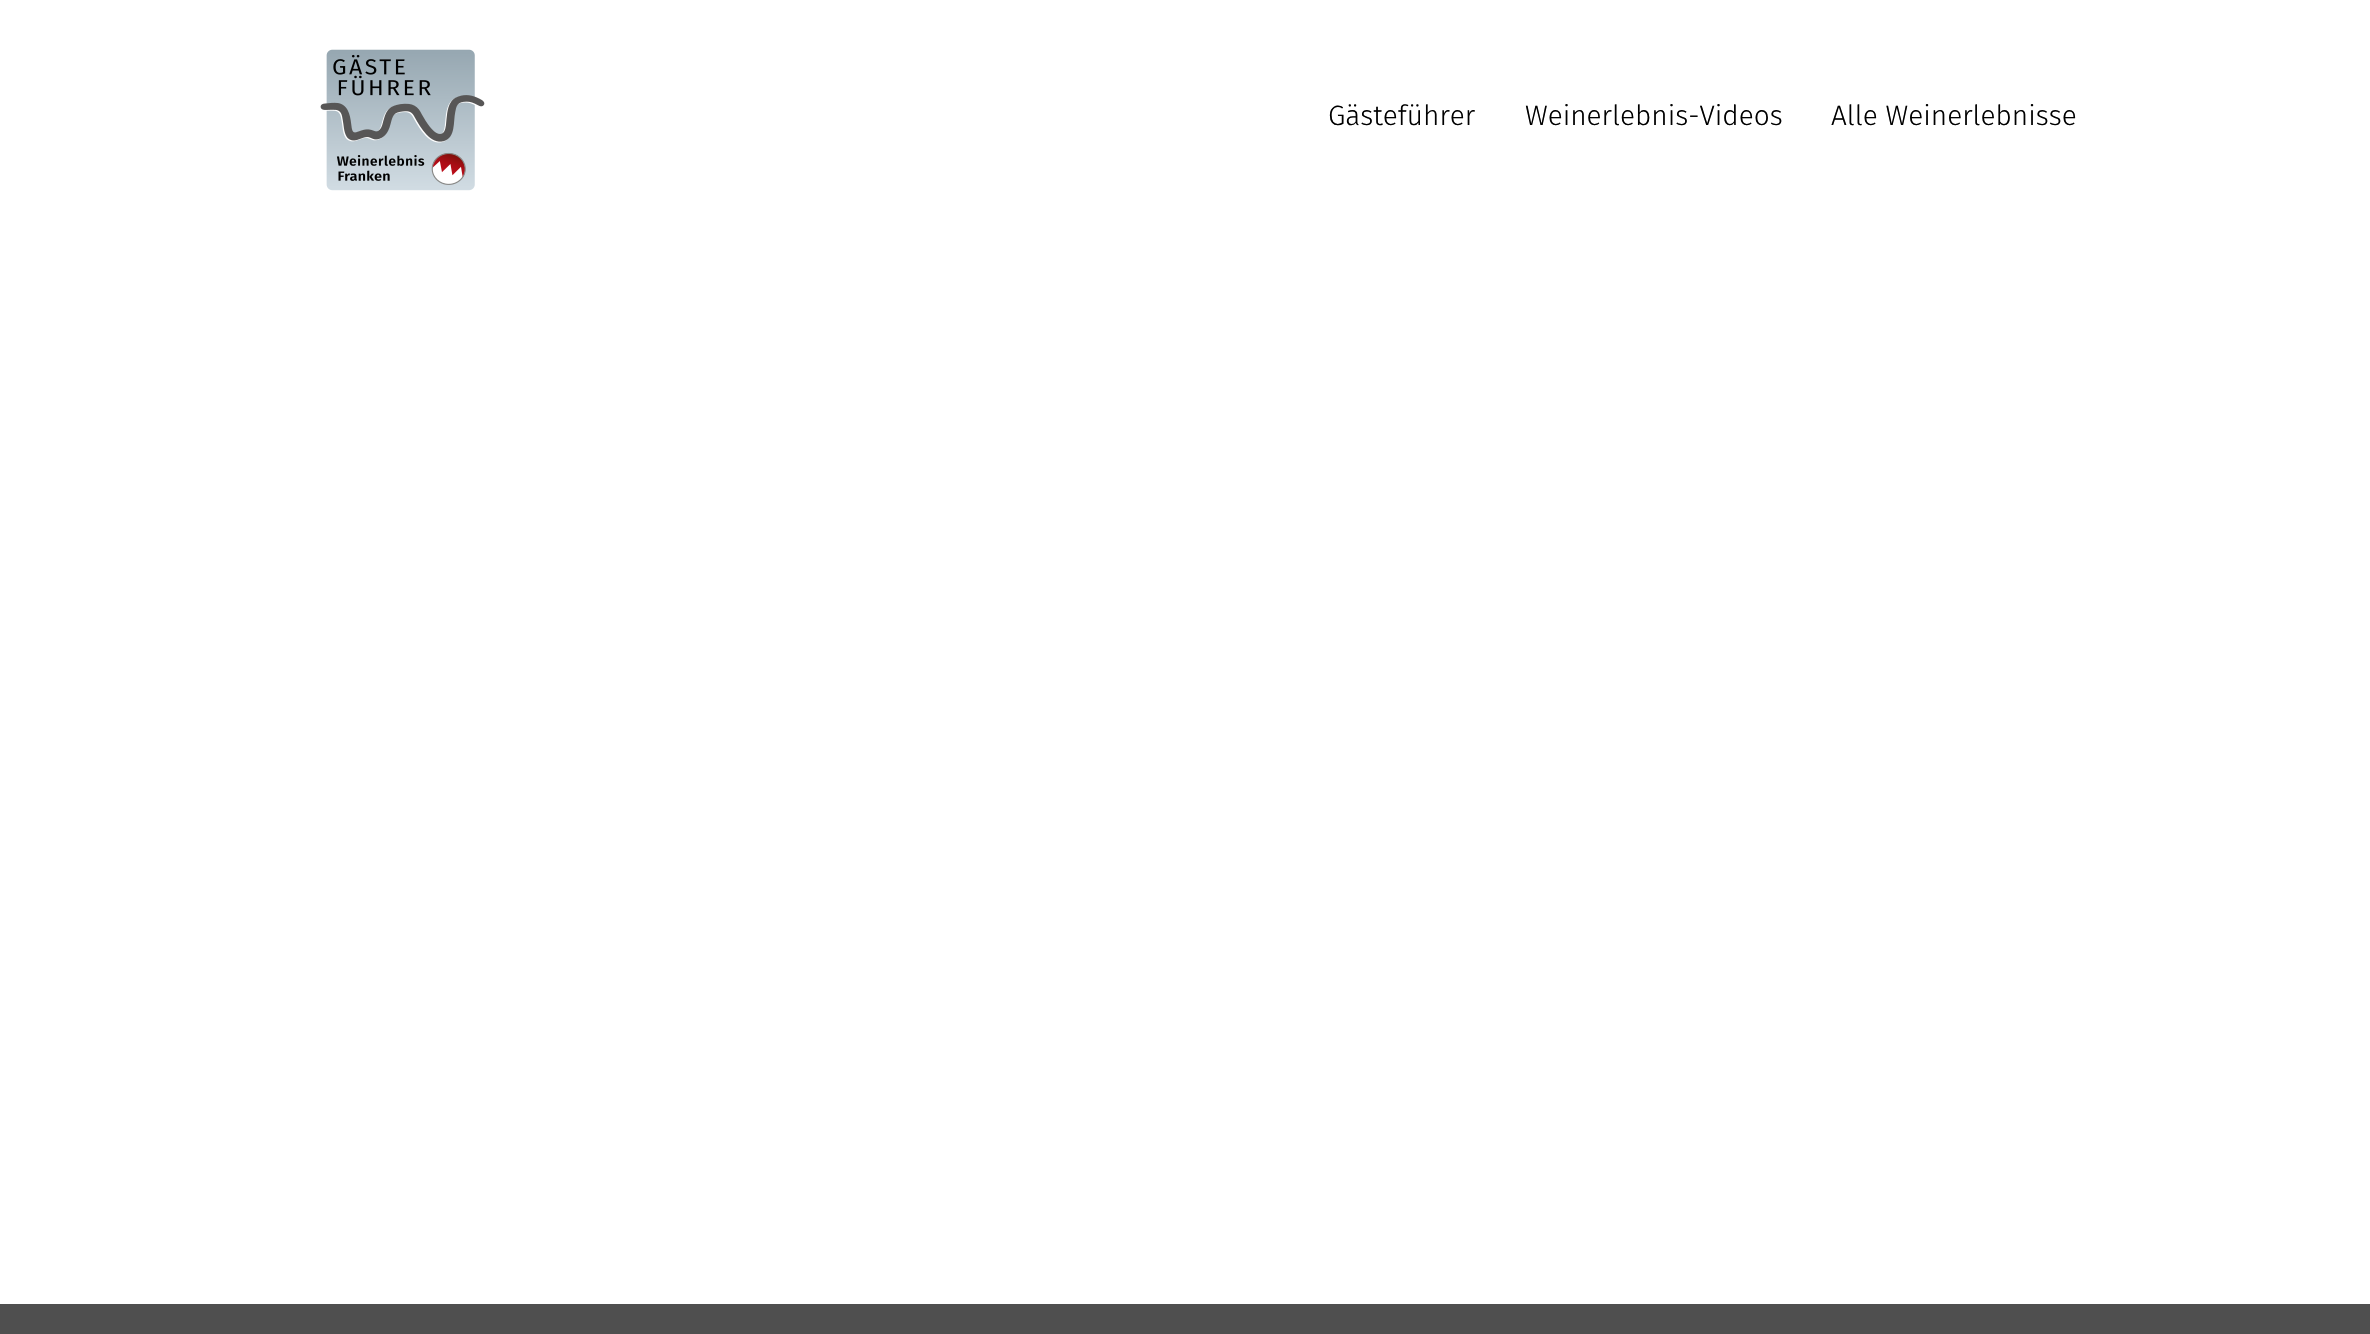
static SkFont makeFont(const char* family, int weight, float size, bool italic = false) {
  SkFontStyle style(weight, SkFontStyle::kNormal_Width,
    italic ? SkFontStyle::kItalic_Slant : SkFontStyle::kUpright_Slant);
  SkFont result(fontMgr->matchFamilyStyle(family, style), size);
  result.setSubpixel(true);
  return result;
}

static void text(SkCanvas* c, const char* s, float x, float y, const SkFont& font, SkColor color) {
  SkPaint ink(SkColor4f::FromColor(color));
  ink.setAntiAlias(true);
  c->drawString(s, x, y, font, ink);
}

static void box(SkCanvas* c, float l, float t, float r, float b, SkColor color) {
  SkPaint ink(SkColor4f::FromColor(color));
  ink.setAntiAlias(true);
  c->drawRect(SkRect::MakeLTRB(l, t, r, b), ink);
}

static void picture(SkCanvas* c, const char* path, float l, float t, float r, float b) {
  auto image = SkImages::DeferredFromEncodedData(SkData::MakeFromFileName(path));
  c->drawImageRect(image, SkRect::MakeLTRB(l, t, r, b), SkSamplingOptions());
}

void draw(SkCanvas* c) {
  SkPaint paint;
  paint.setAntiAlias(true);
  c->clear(0xffffffff);
  picture(c, "img_01.png", 320, 49, 485, 191);
  SkFont face1 = makeFont("Fira Sans", 300, 28);
  text(c, "Gästeführer", 1328, 125, face1, 0xff000000);
  text(c, "Weinerlebnis-Videos", 1525, 125, face1, 0xff000000);
  text(c, "Alle Weinerlebnisse", 1831, 125, face1, 0xff000000);
  box(c, 0, 1304, 2370, 1334, 0xff4f4f4f);
}
